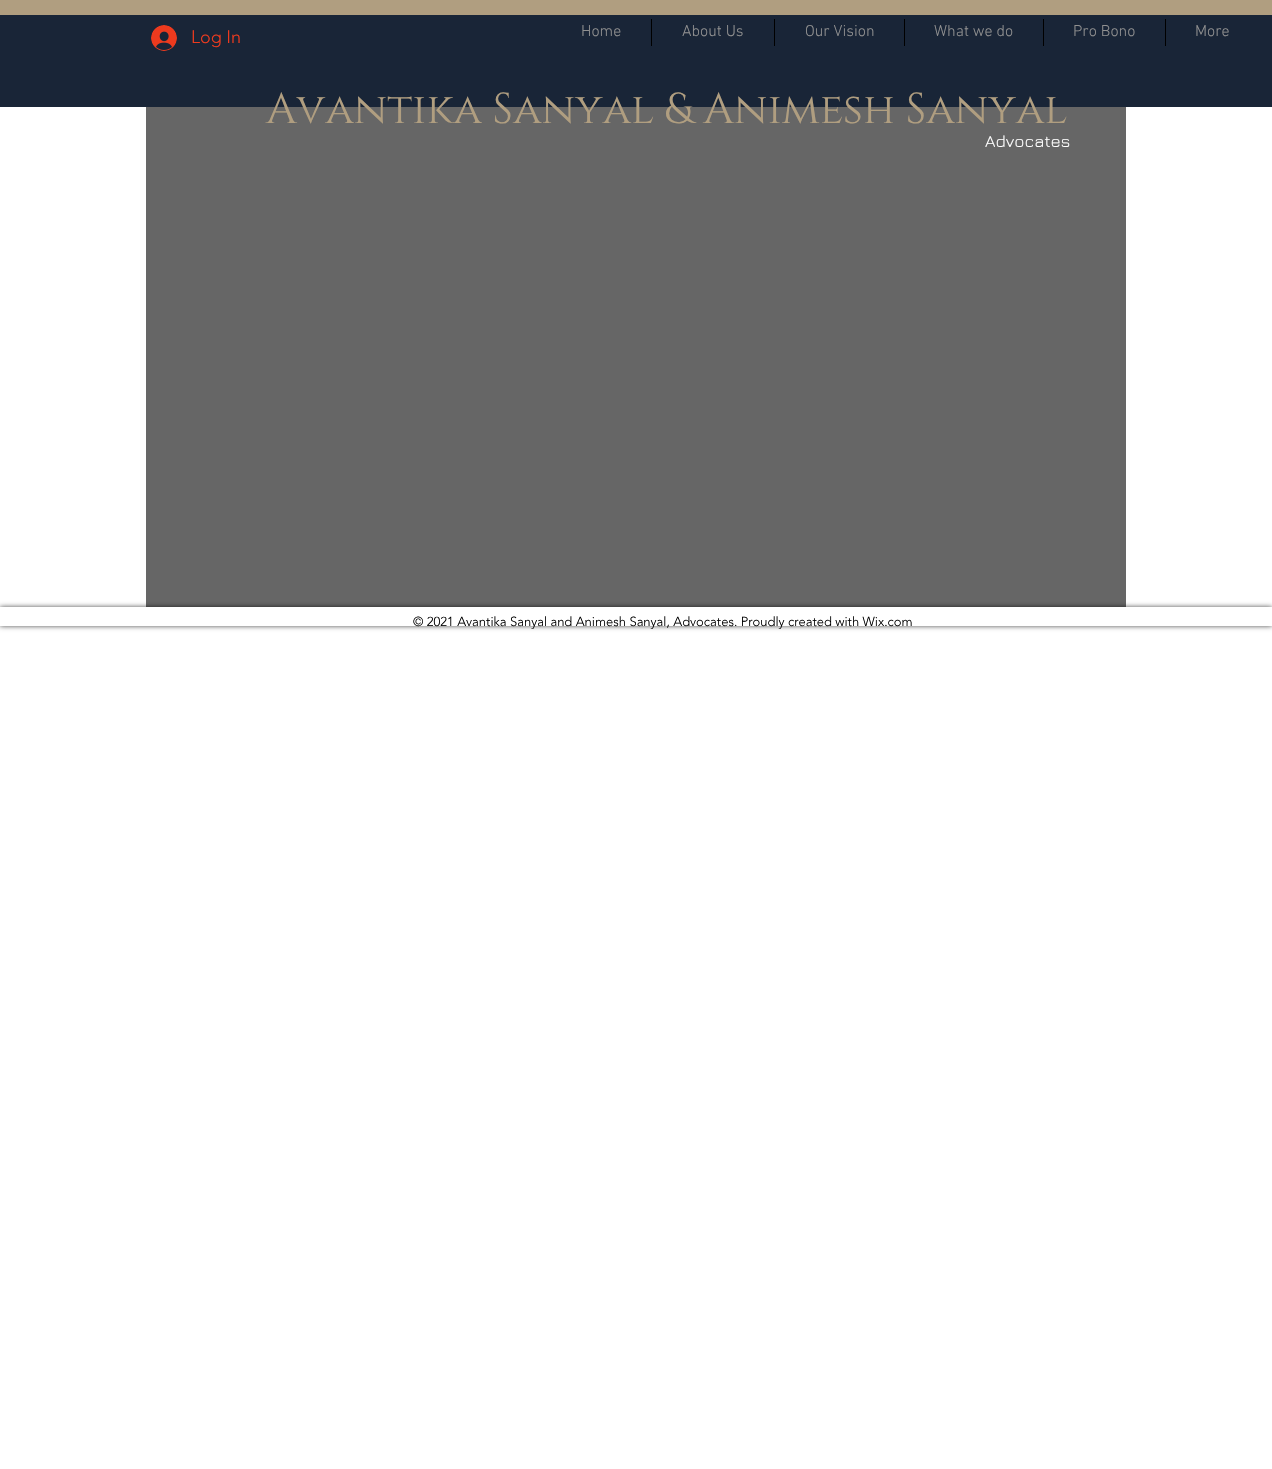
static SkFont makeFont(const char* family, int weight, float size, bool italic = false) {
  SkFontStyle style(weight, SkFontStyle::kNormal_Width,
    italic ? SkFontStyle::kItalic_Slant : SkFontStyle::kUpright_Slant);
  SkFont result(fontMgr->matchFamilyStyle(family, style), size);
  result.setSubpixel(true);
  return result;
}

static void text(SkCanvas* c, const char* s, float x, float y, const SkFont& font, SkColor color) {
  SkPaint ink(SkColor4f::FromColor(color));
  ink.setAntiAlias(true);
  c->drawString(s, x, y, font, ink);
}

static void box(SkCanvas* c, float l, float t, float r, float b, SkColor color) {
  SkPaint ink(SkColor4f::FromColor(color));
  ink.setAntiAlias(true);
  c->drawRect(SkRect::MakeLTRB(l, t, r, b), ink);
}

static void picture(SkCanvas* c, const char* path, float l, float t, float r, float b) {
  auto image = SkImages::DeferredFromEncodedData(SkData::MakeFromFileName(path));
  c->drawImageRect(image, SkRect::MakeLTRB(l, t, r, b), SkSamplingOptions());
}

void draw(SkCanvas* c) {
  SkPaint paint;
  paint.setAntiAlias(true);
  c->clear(0xffffffff);
  box(c, 0, 15, 1272, 107, 0xff192537);
  box(c, 0, 0, 1272, 15, 0xffb09e80);
  picture(c, "img_01.png", 151, 25, 177, 51);
  SkFont face1 = makeFont("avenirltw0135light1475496", 300, 18);
  text(c, "Log In", 191, 43, face1, 0xffed3a1e);
  SkFont face2 = makeFont("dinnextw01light", 300, 16);
  text(c, "Home", 581, 36, face2, 0xff909090);
  box(c, 651, 19, 652, 46, 0xff000000);
  text(c, "About Us", 682, 36, face2, 0xff909090);
  box(c, 774, 19, 775, 46, 0xff000000);
  text(c, "Our Vision", 805, 36, face2, 0xff909090);
  box(c, 904, 19, 905, 46, 0xff000000);
  text(c, "What we do", 934, 36, face2, 0xff909090);
  box(c, 1043, 19, 1044, 46, 0xff000000);
  text(c, "Pro Bono", 1073, 36, face2, 0xff909090);
  box(c, 1165, 19, 1166, 46, 0xff000000);
  text(c, "More", 1195, 36, face2, 0xff909090);
  box(c, 146, 107, 1126, 607, 0xff666666);
  SkFont face3 = makeFont("Cinzel", 400, 43);
  text(c, "Avantika Sanyal & Animesh Sanyal", 266, 123, face3, 0xffb09e80);
  SkFont face4 = makeFont("Jura", 400, 17);
  text(c, "Advocates", 985, 147, face4, 0xffffffff);
  c->save();
  c->clipPath(SkPathBuilder(SkPathFillType::kEvenOdd).moveTo(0, 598).lineTo(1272, 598).lineTo(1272, 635).lineTo(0, 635).close().moveTo(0, 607).lineTo(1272, 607).lineTo(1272, 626).lineTo(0, 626).close().detach(), true);
  paint.setColor(0xb3000000);
  paint.setMaskFilter(SkMaskFilter::MakeBlur(kNormal_SkBlurStyle, 2.5f));
  c->drawRect(SkRect::MakeLTRB(0, 607, 1272, 626), paint);
  paint.setMaskFilter(nullptr);
  c->restore();
  SkFont face5 = makeFont("avenirltw0135light1475496", 300, 13);
  text(c, "© 2021 Avantika Sanyal and Animesh Sanyal, Advocates. Proudly created with Wix.com", 413, 626, face5, 0xff000000);
}
